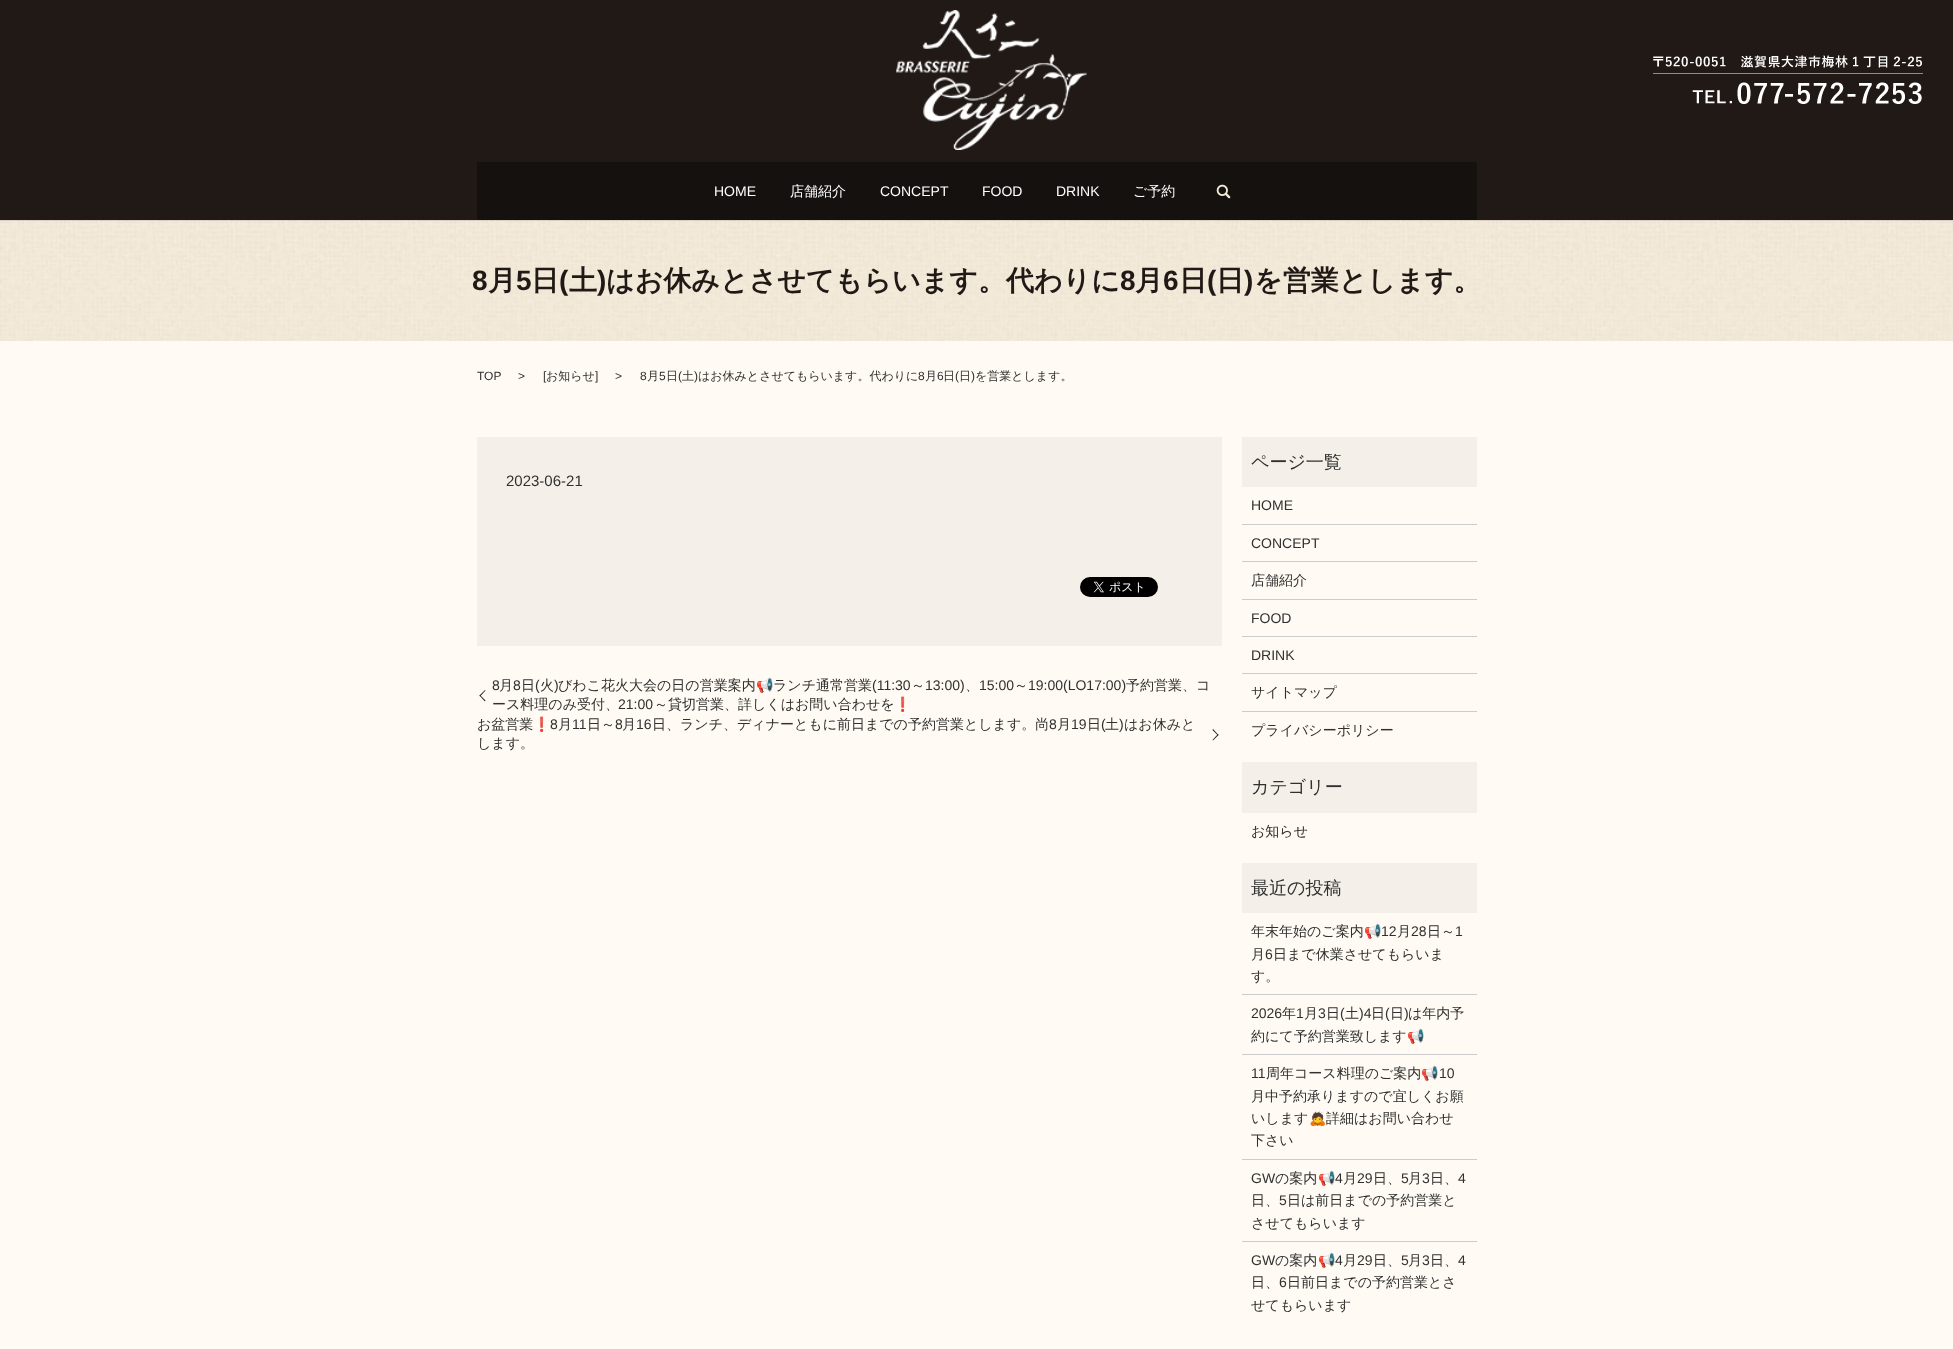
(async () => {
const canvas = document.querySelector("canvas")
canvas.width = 1953
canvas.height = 1349
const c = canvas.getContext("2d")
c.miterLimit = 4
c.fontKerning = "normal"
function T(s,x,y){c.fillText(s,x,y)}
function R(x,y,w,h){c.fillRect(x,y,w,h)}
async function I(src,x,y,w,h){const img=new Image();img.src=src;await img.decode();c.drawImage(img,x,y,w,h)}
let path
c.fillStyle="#fffbf4"
R(0,0,1953,1349)
await I("4.png",0,220,1953,121)
c.fillStyle="#0000001a"
c.filter="blur(0.5px)"
c.beginPath()
c.rect(0,1,1953,220)
c.fill()
c.filter="none"
c.fillStyle="#201916"
R(0,0,1953,220)
await I("1.png",896,10,191,140)
await I("2.png",1653,55,270,49)
c.fillStyle="#15110f"
R(477,162,1000,58)
c.font="14px Liberation Sans"
c.fillStyle="#fff"
T("HOME",714,196)
c.font="500 14px WenQuanYi Zen Hei"
T("店舗紹介",790,196)
c.font="14px Liberation Sans"
T("CONCEPT",880,196)
T("FOOD",982,196)
T("DRINK",1056,196)
c.font="500 14px WenQuanYi Zen Hei"
T("ご予約",1133,196)
await I("3.png",1216,184,15,15)
c.font="bold 28px Liberation Sans"
c.fillStyle="#201916"
T("8",472,290)
c.font="bold 28px WenQuanYi Zen Hei"
T("月",488,290)
c.font="bold 28px Liberation Sans"
T("5",516,290)
c.font="bold 28px WenQuanYi Zen Hei"
T("日",531,290)
c.font="bold 28px Liberation Sans"
T("(",559,290)
c.font="bold 28px WenQuanYi Zen Hei"
T("土",569,290)
c.font="bold 28px Liberation Sans"
T(")",597,290)
c.font="bold 28px WenQuanYi Zen Hei"
T("はお休みとさせてもらいます。代わりに",606,290)
c.font="bold 28px Liberation Sans"
T("8",1120,290)
c.font="bold 28px WenQuanYi Zen Hei"
T("月",1135,290)
c.font="bold 28px Liberation Sans"
T("6",1163,290)
c.font="bold 28px WenQuanYi Zen Hei"
T("日",1179,290)
c.font="bold 28px Liberation Sans"
T("(",1207,290)
c.font="bold 28px WenQuanYi Zen Hei"
T("日",1216,290)
c.font="bold 28px Liberation Sans"
T(")",1244,290)
c.font="bold 28px WenQuanYi Zen Hei"
T("を営業とします。",1254,290)
c.font="12px Liberation Sans"
c.fillStyle="#303030"
T("TOP",477,380)
T(">",518,380)
T("[",543,380)
c.font="500 12px WenQuanYi Zen Hei"
T("お知らせ",546,380)
c.font="12px Liberation Sans"
T("]",595,380)
T(">",615,380)
T("8",640,380)
c.font="500 12px WenQuanYi Zen Hei"
T("月",647,380)
c.font="12px Liberation Sans"
T("5",659,380)
c.font="500 12px WenQuanYi Zen Hei"
T("日",666,380)
c.font="12px Liberation Sans"
T("(",678,380)
c.font="500 12px WenQuanYi Zen Hei"
T("土",682,380)
c.font="12px Liberation Sans"
T(")",694,380)
c.font="500 12px WenQuanYi Zen Hei"
T("はお休みとさせてもらいます。代わりに",698,380)
c.font="12px Liberation Sans"
T("8",918,380)
c.font="500 12px WenQuanYi Zen Hei"
T("月",925,380)
c.font="12px Liberation Sans"
T("6",937,380)
c.font="500 12px WenQuanYi Zen Hei"
T("日",943,380)
c.font="12px Liberation Sans"
T("(",955,380)
c.font="500 12px WenQuanYi Zen Hei"
T("日",959,380)
c.font="12px Liberation Sans"
T(")",971,380)
c.font="500 12px WenQuanYi Zen Hei"
T("を営業とします。",975,380)
c.fillStyle="#f4f0e9"
R(477,437,745,209)
c.font="15px Liberation Sans"
c.fillStyle="#303030"
T("2023-06-21",506,486)
await I("5.png",1080,577,78,20)
c.font="14px Liberation Sans"
T("8",492,690)
c.font="500 14px WenQuanYi Zen Hei"
T("月",499,690)
c.font="14px Liberation Sans"
T("8",513,690)
c.font="500 14px WenQuanYi Zen Hei"
T("日",521,690)
c.font="14px Liberation Sans"
T("(",535,690)
c.font="500 14px WenQuanYi Zen Hei"
T("火",540,690)
c.font="14px Liberation Sans"
T(")",554,690)
c.font="500 14px WenQuanYi Zen Hei"
T("びわこ花火大会の日の営業案内",558,690)
c.font="14px Noto Color Emoji"
T("📢",756,690)
c.font="500 14px WenQuanYi Zen Hei"
T("ランチ通常営業",773,690)
c.font="14px Liberation Sans"
T("(11:30",872,690)
c.font="500 14px WenQuanYi Zen Hei"
T("～",911,690)
c.font="14px Liberation Sans"
T("13:00)",925,690)
T("15:00",979,690)
c.font="500 14px WenQuanYi Zen Hei"
T("～",1014,690)
c.font="14px Liberation Sans"
T("19:00(LO17:00)",1028,690)
c.font="500 14px WenQuanYi Zen Hei"
T("予約営業、コ",1126,690)
c.fillStyle="#201916"
path = new Path2D("M479.5 695.5l5.5-5.5l.5 .5l-5.5 6z")
c.fill(path)
c.fillStyle="#303030"
T("、",965,690)
c.fillStyle="#201916"
path = new Path2D("M485 701.5l-5.5-6l.5-.5l5.5 5.5z")
c.fill(path)
c.fillStyle="#303030"
T("ース料理のみ受付、",492,709)
c.font="14px Liberation Sans"
T("21:00",618,709)
c.font="500 14px WenQuanYi Zen Hei"
T("～貸切営業、詳しくはお問い合わせを",654,709)
c.font="14px Noto Color Emoji"
T("❗",894,709)
c.font="500 14px WenQuanYi Zen Hei"
T("お盆営業",477,729)
c.font="14px Noto Color Emoji"
T("❗",533,729)
c.font="14px Liberation Sans"
T("8",550,729)
c.font="500 14px WenQuanYi Zen Hei"
T("月",558,729)
c.font="14px Liberation Sans"
T("11",572,729)
c.font="500 14px WenQuanYi Zen Hei"
T("日～",587,729)
c.font="14px Liberation Sans"
T("8",615,729)
c.font="500 14px WenQuanYi Zen Hei"
T("月",622,729)
c.font="14px Liberation Sans"
T("16",636,729)
c.font="500 14px WenQuanYi Zen Hei"
T("日、ランチ、ディナーともに前日までの予約営業とします。尚",652,729)
c.font="14px Liberation Sans"
T("8",1049,729)
c.font="500 14px WenQuanYi Zen Hei"
T("月",1057,729)
c.font="14px Liberation Sans"
T("19",1071,729)
c.font="500 14px WenQuanYi Zen Hei"
T("日",1087,729)
c.font="14px Liberation Sans"
T("(",1101,729)
c.font="500 14px WenQuanYi Zen Hei"
T("土",1105,729)
c.font="14px Liberation Sans"
T(")",1119,729)
c.font="500 14px WenQuanYi Zen Hei"
T("はお休みと",1124,729)
c.fillStyle="#201916"
path = new Path2D("M1213 729l5.5 6l-.5 .5l-5.5-5.5z")
c.fill(path)
c.fillStyle="#303030"
T("します。",477,748)
c.fillStyle="#201916"
path = new Path2D("M1218.5 735l-5.5 5.5l-.5-.5l5.5-6z")
c.fill(path)
c.fillStyle="#f4f0e9"
R(1242,437,235,50)
c.font="500 18px WenQuanYi Zen Hei"
c.fillStyle="#303030"
T("ページ一覧",1251,468)
c.fillStyle="#ccc"
R(1242,524,235,1)
c.font="14px Liberation Sans"
c.fillStyle="#303030"
T("HOME",1251,510)
c.fillStyle="#ccc"
R(1242,561,235,1)
c.fillStyle="#303030"
T("CONCEPT",1251,548)
c.fillStyle="#ccc"
R(1242,599,235,1)
c.font="500 14px WenQuanYi Zen Hei"
c.fillStyle="#303030"
T("店舗紹介",1251,585)
c.fillStyle="#ccc"
R(1242,636,235,1)
c.font="14px Liberation Sans"
c.fillStyle="#303030"
T("FOOD",1251,623)
c.fillStyle="#ccc"
R(1242,673,235,1)
c.fillStyle="#303030"
T("DRINK",1251,660)
c.fillStyle="#ccc"
R(1242,711,235,1)
c.font="500 14px WenQuanYi Zen Hei"
c.fillStyle="#303030"
T("サイトマップ",1251,697)
T("プライバシーポリシー",1251,735)
c.fillStyle="#f4f0e9"
R(1242,762,235,51)
c.font="500 18px WenQuanYi Zen Hei"
c.fillStyle="#303030"
T("カテゴリー",1251,793)
c.font="500 14px WenQuanYi Zen Hei"
T("お知らせ",1251,836)
c.fillStyle="#f4f0e9"
R(1242,863,235,50)
c.font="500 18px WenQuanYi Zen Hei"
c.fillStyle="#303030"
T("最近の投稿",1251,894)
c.fillStyle="#ccc"
R(1242,994,235,1)
c.font="500 14px WenQuanYi Zen Hei"
c.fillStyle="#303030"
T("年末年始のご案内",1251,936)
c.font="14px Noto Color Emoji"
T("📢",1364,936)
c.font="14px Liberation Sans"
T("12",1381,936)
c.font="500 14px WenQuanYi Zen Hei"
T("月",1397,936)
c.font="14px Liberation Sans"
T("28",1411,936)
c.font="500 14px WenQuanYi Zen Hei"
T("日～",1427,936)
c.font="14px Liberation Sans"
T("1",1455,936)
c.font="500 14px WenQuanYi Zen Hei"
T("月",1251,959)
c.font="14px Liberation Sans"
T("6",1265,959)
c.font="500 14px WenQuanYi Zen Hei"
T("日まで休業させてもらいま",1273,959)
T("す。",1251,981)
c.fillStyle="#ccc"
R(1242,1054,235,1)
c.font="14px Liberation Sans"
c.fillStyle="#303030"
T("2026",1251,1018)
c.font="500 14px WenQuanYi Zen Hei"
T("年",1282,1018)
c.font="14px Liberation Sans"
T("1",1296,1018)
c.font="500 14px WenQuanYi Zen Hei"
T("月",1304,1018)
c.font="14px Liberation Sans"
T("3",1318,1018)
c.font="500 14px WenQuanYi Zen Hei"
T("日",1326,1018)
c.font="14px Liberation Sans"
T("(",1340,1018)
c.font="500 14px WenQuanYi Zen Hei"
T("土",1345,1018)
c.font="14px Liberation Sans"
T(")4",1359,1018)
c.font="500 14px WenQuanYi Zen Hei"
T("日",1371,1018)
c.font="14px Liberation Sans"
T("(",1385,1018)
c.font="500 14px WenQuanYi Zen Hei"
T("日",1390,1018)
c.font="14px Liberation Sans"
T(")",1404,1018)
c.font="500 14px WenQuanYi Zen Hei"
T("は年内予",1408,1018)
T("約にて予約営業致します",1251,1041)
c.font="14px Noto Color Emoji"
T("📢",1407,1041)
c.fillStyle="#ccc"
R(1242,1159,235,1)
c.font="14px Liberation Sans"
c.fillStyle="#303030"
T("11",1251,1078)
c.font="500 14px WenQuanYi Zen Hei"
T("周年コース料理のご案内",1266,1078)
c.font="14px Noto Color Emoji"
T("📢",1421,1078)
c.font="14px Liberation Sans"
T("10",1439,1078)
c.font="500 14px WenQuanYi Zen Hei"
T("月中予約承りますので宜しくお願",1251,1101)
T("いします",1251,1123)
c.font="14px Noto Color Emoji"
T("🙇",1309,1123)
c.font="500 14px WenQuanYi Zen Hei"
T("詳細はお問い合わせ",1326,1123)
T("下さい",1251,1145)
c.fillStyle="#ccc"
R(1242,1241,235,1)
c.font="14px Liberation Sans"
c.fillStyle="#303030"
T("GW",1251,1183)
c.font="500 14px WenQuanYi Zen Hei"
T("の案内",1275,1183)
c.font="14px Noto Color Emoji"
T("📢",1318,1183)
c.font="14px Liberation Sans"
T("4",1335,1183)
c.font="500 14px WenQuanYi Zen Hei"
T("月",1343,1183)
c.font="14px Liberation Sans"
T("29",1357,1183)
c.font="500 14px WenQuanYi Zen Hei"
T("日、",1373,1183)
c.font="14px Liberation Sans"
T("5",1401,1183)
c.font="500 14px WenQuanYi Zen Hei"
T("月",1408,1183)
c.font="14px Liberation Sans"
T("3",1422,1183)
c.font="500 14px WenQuanYi Zen Hei"
T("日、",1430,1183)
c.font="14px Liberation Sans"
T("4",1458,1183)
c.font="500 14px WenQuanYi Zen Hei"
T("日、",1251,1205)
c.font="14px Liberation Sans"
T("5",1279,1205)
c.font="500 14px WenQuanYi Zen Hei"
T("日は前日までの予約営業と",1287,1205)
T("させてもらいます",1251,1228)
c.font="14px Liberation Sans"
T("GW",1251,1265)
c.font="500 14px WenQuanYi Zen Hei"
T("の案内",1275,1265)
c.font="14px Noto Color Emoji"
T("📢",1318,1265)
c.font="14px Liberation Sans"
T("4",1335,1265)
c.font="500 14px WenQuanYi Zen Hei"
T("月",1343,1265)
c.font="14px Liberation Sans"
T("29",1357,1265)
c.font="500 14px WenQuanYi Zen Hei"
T("日、",1373,1265)
c.font="14px Liberation Sans"
T("5",1401,1265)
c.font="500 14px WenQuanYi Zen Hei"
T("月",1408,1265)
c.font="14px Liberation Sans"
T("3",1422,1265)
c.font="500 14px WenQuanYi Zen Hei"
T("日、",1430,1265)
c.font="14px Liberation Sans"
T("4",1458,1265)
c.font="500 14px WenQuanYi Zen Hei"
T("日、",1251,1287)
c.font="14px Liberation Sans"
T("6",1279,1287)
c.font="500 14px WenQuanYi Zen Hei"
T("日前日までの予約営業とさ",1287,1287)
T("せてもらいます",1251,1310)
})()
